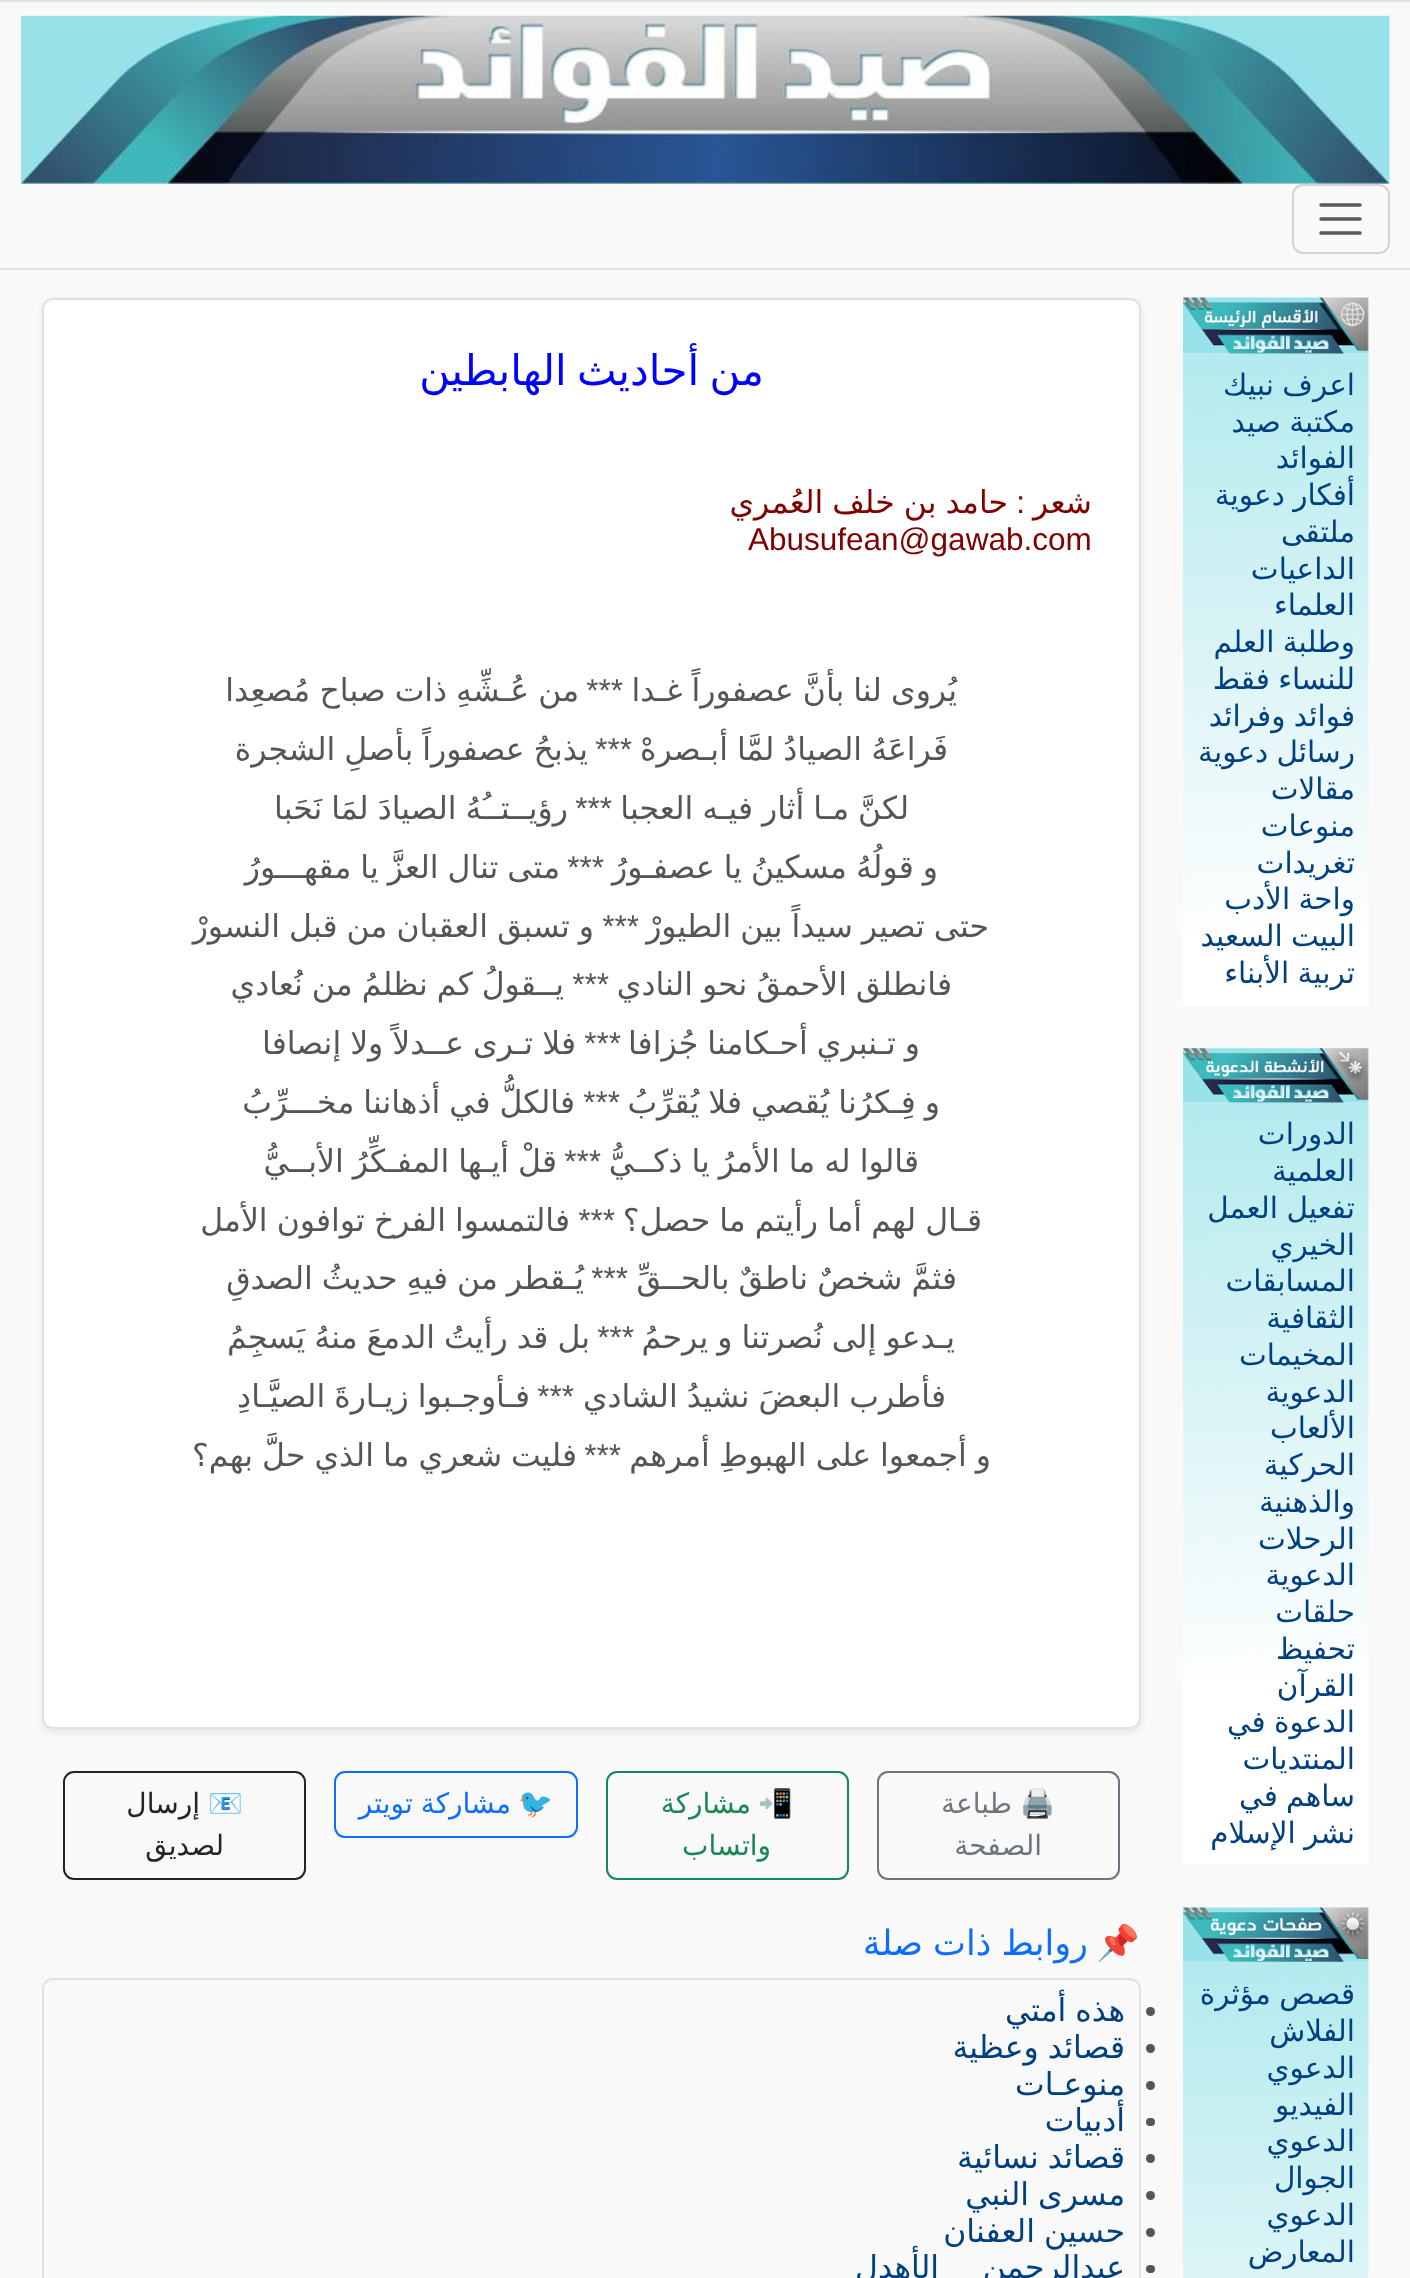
(async () => {
const canvas = document.querySelector("canvas")
canvas.width = 1410
canvas.height = 2278
const c = canvas.getContext("2d")
c.miterLimit = 4
c.fontKerning = "normal"
function T(s,x,y){c.fillText(s,x,y)}
function R(x,y,w,h){c.fillRect(x,y,w,h)}
function Q(x,y,w,h,r){c.beginPath();c.roundRect(x,y,w,h,r);c.fill()}
async function I(src,x,y,w,h){const img=new Image();img.src=src;await img.decode();c.drawImage(img,x,y,w,h)}
let path
c.fillStyle="#f9f9f9"
R(0,0,1410,2278)
c.fillStyle="#dee2e6"
R(0,0,1410,2)
R(0,268,1410,2)
await I("1.png",21,15,1369,169)
c.beginPath()
c.roundRect(1293,185,96,68,10)
c.strokeStyle="#d4d4d4"
c.lineWidth=2
c.stroke()
path = new Path2D("M1321 205h39m-39 14h39m-39 14h39")
c.strokeStyle="#575a5d"
c.lineWidth=3.5
c.lineCap="round"
c.stroke(path)
await I("3.png",1183,353,186,653)
await I("2.png",1183,297,186,57)
c.wordSpacing="-1px"
c.direction="rtl"
c.font="29.5px DejaVu Sans"
c.fillStyle="#004080"
T("اعرف نبيك",1355,395)
T("مكتبة صيد",1355,432)
c.wordSpacing="0px"
T("الفوائد",1355,468)
c.wordSpacing="-1px"
T("أفكار دعوية",1355,505)
c.wordSpacing="0px"
T("ملتقى",1355,542)
T("الداعيات",1355,579)
T("العلماء",1355,615)
c.wordSpacing="-1px"
T("وطلبة العلم",1355,652)
T("للنساء فقط",1355,689)
T("فوائد وفرائد",1355,726)
T("رسائل دعوية",1355,762)
c.wordSpacing="0px"
T("مقالات",1355,799)
T("منوعات",1355,836)
T("تغريدات",1355,873)
c.wordSpacing="-1px"
T("واحة الأدب",1355,909)
T("البيت السعيد",1355,946)
T("تربية الأبناء",1355,983)
await I("5.png",1183,1102,186,763)
await I("4.png",1183,1048,186,55)
c.wordSpacing="0px"
T("الدورات",1355,1144)
T("العلمية",1355,1181)
c.wordSpacing="-1px"
T("تفعيل العمل",1355,1218)
c.wordSpacing="0px"
T("الخيري",1355,1255)
T("المسابقات",1355,1291)
T("الثقافية",1355,1328)
T("المخيمات",1355,1365)
T("الدعوية",1355,1402)
T("الألعاب",1355,1438)
T("الحركية",1355,1475)
T("والذهنية",1355,1512)
T("الرحلات",1355,1549)
T("الدعوية",1355,1585)
T("حلقات",1355,1622)
T("تحفيظ",1355,1659)
T("القرآن",1355,1696)
c.wordSpacing="-1px"
T("الدعوة في",1355,1732)
c.wordSpacing="0px"
T("المنتديات",1355,1769)
c.wordSpacing="-1px"
T("ساهم في",1355,1806)
T("نشر الإسلام",1355,1843)
await I("7.png",1183,1961,186,317)
await I("6.png",1183,1907,186,55)
T("قصص مؤثرة",1355,2004)
c.wordSpacing="0px"
T("الفلاش",1355,2041)
T("الدعوي",1355,2078)
T("الفيديو",1355,2115)
T("الدعوي",1355,2151)
T("الجوال",1355,2188)
T("الدعوي",1355,2225)
T("المعارض",1355,2262)
c.fillStyle="#00000012"
c.filter="blur(3.5px)"
c.beginPath()
c.roundRect(42,301,1099,1432,11)
c.fill()
c.filter="none"
c.fillStyle="#fff"
c.beginPath()
c.roundRect(43,299,1097,1429,10)
c.fill()
c.strokeStyle="#dee2e6"
c.lineWidth=2
c.stroke()
c.wordSpacing="-3px"
c.font="42px DejaVu Sans"
c.fillStyle="#00f"
T("من أحاديث الهابطين",764,385)
c.wordSpacing="0px"
c.font="31.5px DejaVu Sans"
c.fillStyle="#800000"
T("شعر",1092,513)
c.font="31.5px Liberation Sans"
T(":",1025,513)
c.wordSpacing="-1px"
c.font="31.5px DejaVu Sans"
T("حامد بن خلف العُمري",1008,513)
c.wordSpacing="0px"
c.direction="ltr"
c.font="31.5px Liberation Sans"
T("Abusufean@gawab.com",748,550)
c.wordSpacing="-1px"
c.direction="rtl"
c.font="31.5px DejaVu Sans"
c.fillStyle="#555"
T("يُروى لنا بأنَّ عصفوراً غـدا",957,701)
c.wordSpacing="0px"
c.font="31.5px Liberation Sans"
T("***",623,701)
c.wordSpacing="-1px"
c.font="31.5px DejaVu Sans"
T("من عُـشِّهِ ذات صباح",579,701)
c.wordSpacing="0px"
T("مُصعِدا",310,701)
c.wordSpacing="-1px"
T("فَراعَهُ الصيادُ لمَّا أبـصرهْ",948,760)
c.wordSpacing="0px"
c.font="31.5px Liberation Sans"
T("***",632,760)
c.wordSpacing="-1px"
c.font="31.5px DejaVu Sans"
T("يذبحُ عصفوراً بأصلِ الشجرة",588,760)
T("لكنَّ مـا أثار فيـه العجبا",909,819)
c.wordSpacing="0px"
c.font="31.5px Liberation Sans"
T("***",612,819)
c.wordSpacing="-1px"
c.font="31.5px DejaVu Sans"
T("رؤيــتــُهُ الصيادَ لمَا نَحَبا",568,819)
T("و قولُهُ مسكينُ يا عصفـورُ",938,878)
c.wordSpacing="0px"
c.font="31.5px Liberation Sans"
T("***",604,878)
c.wordSpacing="-1px"
c.font="31.5px DejaVu Sans"
T("متى تنال العزَّ يا مقهـــورُ",560,878)
T("حتى تصير سيداً بين الطيورْ",989,937)
c.wordSpacing="0px"
c.font="31.5px Liberation Sans"
T("***",639,937)
c.wordSpacing="-1px"
c.font="31.5px DejaVu Sans"
T("و تسبق العقبان من قبل النسورْ",594,937)
T("فانطلق الأحمقُ نحو النادي",952,995)
c.wordSpacing="0px"
c.font="31.5px Liberation Sans"
T("***",609,995)
c.wordSpacing="-1px"
c.font="31.5px DejaVu Sans"
T("يــقولُ كم نظلمُ من نُعادي",564,995)
T("و تـنبري أحـكامنا جُزافا",920,1054)
c.wordSpacing="0px"
c.font="31.5px Liberation Sans"
T("***",621,1054)
c.wordSpacing="-1px"
c.font="31.5px DejaVu Sans"
T("فلا تـرى عــدلاً ولا إنصافا",576,1054)
T("و فِـكرُنا يُقصي فلا يُقرِّبُ",940,1113)
c.wordSpacing="0px"
c.font="31.5px Liberation Sans"
T("***",620,1113)
c.wordSpacing="-1px"
c.font="31.5px DejaVu Sans"
T("فالكلُّ في أذهاننا مخـــرِّبُ",575,1113)
T("قالوا له ما الأمرُ يا ذكــيُّ",919,1172)
c.wordSpacing="0px"
c.font="31.5px Liberation Sans"
T("***",601,1172)
c.wordSpacing="-1px"
c.font="31.5px DejaVu Sans"
T("قلْ أيـها المفـكِّرُ الأبــيُّ",557,1172)
T("قـال لهم أما رأيتم ما حصل؟",982,1231)
c.wordSpacing="0px"
c.font="31.5px Liberation Sans"
T("***",615,1231)
c.wordSpacing="-1px"
c.font="31.5px DejaVu Sans"
T("فالتمسوا الفرخ توافون الأمل",570,1231)
T("فثمَّ شخصٌ ناطقٌ بالحــقِّ",957,1289)
c.wordSpacing="0px"
c.font="31.5px Liberation Sans"
T("***",628,1289)
c.wordSpacing="-1px"
c.font="31.5px DejaVu Sans"
T("يُـقطر من فيهِ حديثُ الصدقِ",584,1289)
T("يـدعو إلى نُصرتنا و يرحمُ",955,1348)
c.wordSpacing="0px"
c.font="31.5px Liberation Sans"
T("***",634,1348)
c.wordSpacing="-1px"
c.font="31.5px DejaVu Sans"
T("بل قد رأيتُ الدمعَ منهُ يَسجِمُ",590,1348)
T("فأطرب البعضَ نشيدُ الشادي",946,1407)
c.wordSpacing="0px"
c.font="31.5px Liberation Sans"
T("***",574,1407)
c.wordSpacing="-1px"
c.font="31.5px DejaVu Sans"
T("فـأوجـبوا زيـارةَ الصيَّـادِ",530,1407)
T("و أجمعوا على الهبوطِ أمرهم",991,1466)
c.wordSpacing="0px"
c.font="31.5px Liberation Sans"
T("***",621,1466)
c.wordSpacing="-1px"
c.font="31.5px DejaVu Sans"
T("فليت شعري ما الذي حلَّ بهم؟",577,1466)
c.beginPath()
c.roundRect(878,1772,241,107,10)
c.strokeStyle="#6c757d"
c.stroke()
c.wordSpacing="0px"
c.font="28px Noto Color Emoji"
c.fillStyle="#6c757d"
T("🖨️",1055,1813)
c.font="28px DejaVu Sans"
T("طباعة",1012,1813)
T("الصفحة",1042,1855)
c.beginPath()
c.roundRect(607,1772,241,107,10)
c.strokeStyle="#198754"
c.stroke()
c.font="28px Noto Color Emoji"
c.fillStyle="#198754"
T("📲",793,1813)
c.font="28px DejaVu Sans"
T("مشاركة",751,1813)
T("واتساب",771,1855)
c.beginPath()
c.roundRect(335,1772,242,65,10)
c.strokeStyle="#0d6efd"
c.stroke()
c.font="28px Noto Color Emoji"
c.fillStyle="#0d6efd"
T("🐦",553,1813)
c.wordSpacing="-1px"
c.font="28px DejaVu Sans"
T("مشاركة تويتر",511,1813)
c.beginPath()
c.roundRect(64,1772,241,107,10)
c.strokeStyle="#212529"
c.stroke()
c.wordSpacing="0px"
c.font="28px Noto Color Emoji"
c.fillStyle="#212529"
T("📧",243,1813)
c.font="28px DejaVu Sans"
T("إرسال",200,1813)
T("لصديق",224,1855)
c.font="35px Noto Color Emoji"
c.fillStyle="#0d6efd"
T("📌",1140,1955)
c.wordSpacing="-1px"
c.font="35px DejaVu Sans"
T("روابط ذات صلة",1088,1955)
c.beginPath()
c.roundRect(43,1979,1097,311,10)
c.strokeStyle="#dee2e6"
c.stroke()
c.fillStyle="#555"
c.beginPath()
c.arc(1150.5,2011.5,4.5,0,7)
c.fill()
c.font="31.5px DejaVu Sans"
c.fillStyle="#004080"
T("هذه أمتي",1125,2021)
c.fillStyle="#555"
c.beginPath()
c.arc(1150.5,2048.5,4.5,0,7)
c.fill()
c.fillStyle="#004080"
T("قصائد وعظية",1125,2058)
c.fillStyle="#555"
c.beginPath()
c.arc(1150.5,2085.5,4.5,0,7)
c.fill()
c.wordSpacing="0px"
c.fillStyle="#004080"
T("منوعـات",1125,2095)
c.fillStyle="#555"
Q(1146,2118,9,8,4)
c.fillStyle="#004080"
T("أدبيات",1125,2131)
c.fillStyle="#555"
c.beginPath()
c.arc(1150.5,2158.5,4.5,0,7)
c.fill()
c.wordSpacing="-1px"
c.fillStyle="#004080"
T("قصائد نسائية",1125,2168)
c.fillStyle="#555"
c.beginPath()
c.arc(1150.5,2195.5,4.5,0,7)
c.fill()
c.fillStyle="#004080"
T("مسرى النبي",1125,2205)
c.fillStyle="#555"
c.beginPath()
c.arc(1150.5,2232.5,4.5,0,7)
c.fill()
c.fillStyle="#004080"
T("حسين العفنان",1125,2242)
c.fillStyle="#555"
Q(1146,2265,9,8,4)
c.letterSpacing="-2.3px"
c.wordSpacing="36px"
c.fillStyle="#004080"
T("عبدالرحمن الأهدل",1125,2278)
})()
